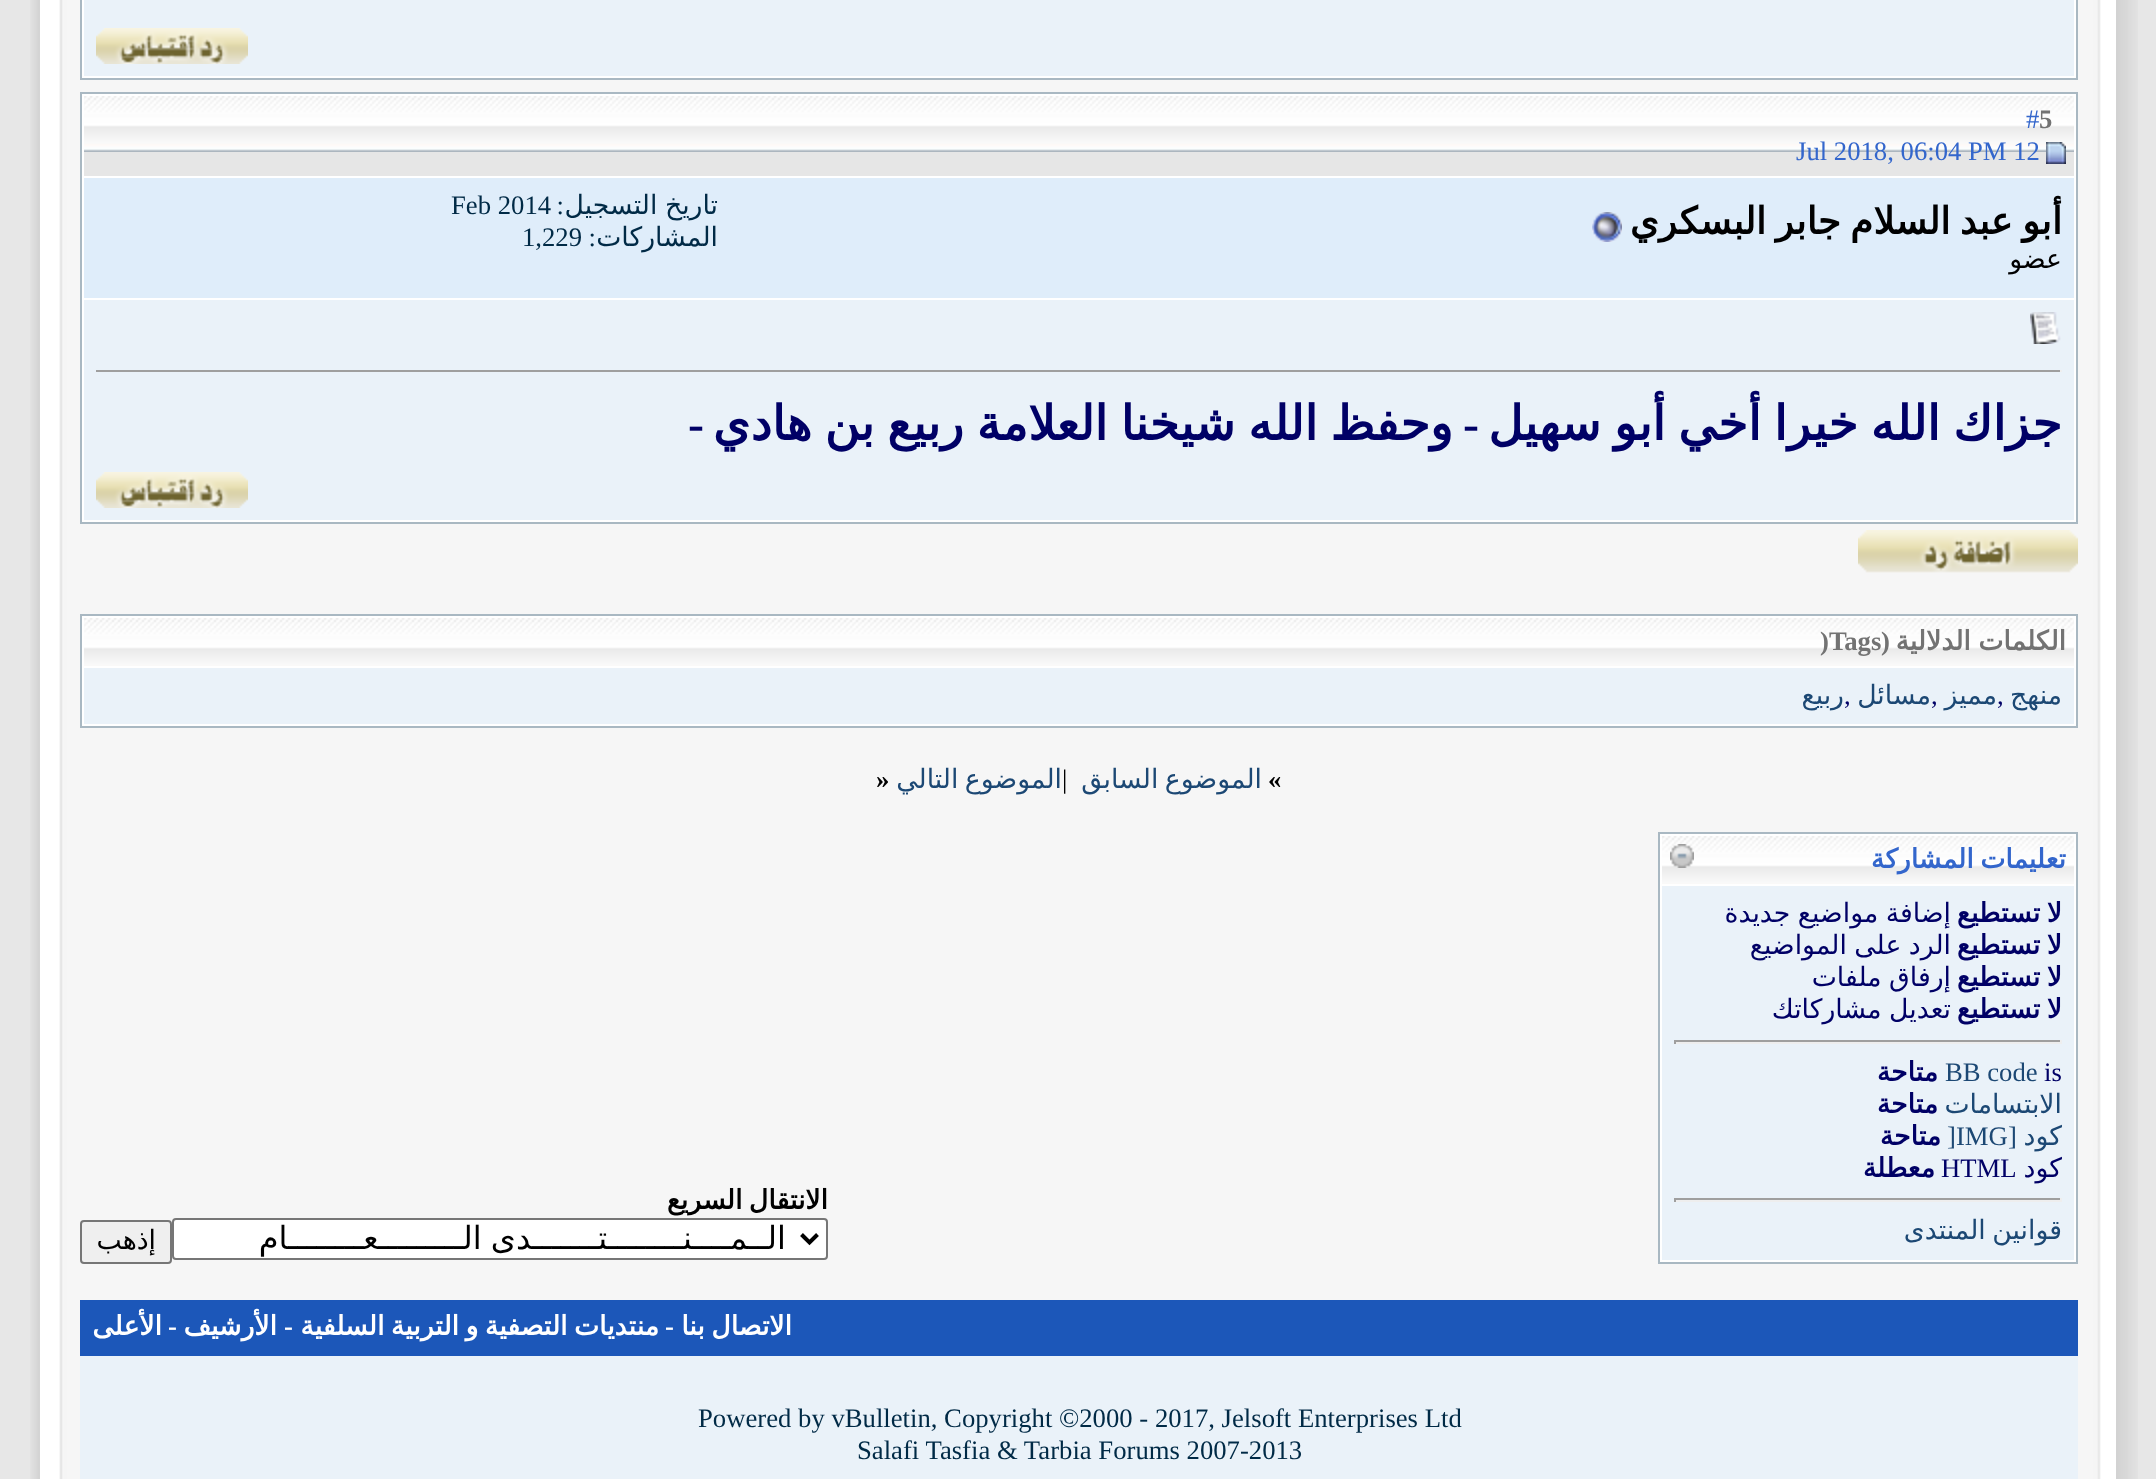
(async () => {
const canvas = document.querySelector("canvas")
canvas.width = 2156
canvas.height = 1479
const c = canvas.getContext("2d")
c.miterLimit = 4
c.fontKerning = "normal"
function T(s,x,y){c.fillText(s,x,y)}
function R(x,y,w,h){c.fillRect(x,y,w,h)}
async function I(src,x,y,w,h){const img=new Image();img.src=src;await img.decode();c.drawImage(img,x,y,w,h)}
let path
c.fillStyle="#e7e7e7"
R(0,0,2156,1479)
await I("1.png",2116,0,22,1479)
c.fillStyle="#fff"
R(40,0,2076,1479)
await I("2.png",2078,0,23,1479)
c.fillStyle="#f6f6f6"
R(80,80,1998,12)
c.strokeStyle="#a9b8c2"
c.lineWidth=2
c.strokeRect(81,-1,1996,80)
c.fillStyle="#eaf2f9"
R(84,0,1990,76)
await I("3.png",96,28,152,36)
c.fillStyle="#f6f6f6"
R(80,524,1998,776)
c.strokeRect(81,93,1996,430)
c.fillStyle="#e6e6e6"
R(84,152,1990,24)
await I("4.png",84,96,1990,56)
c.font="bold 26.7px Liberation Serif"
c.fillStyle="#737373"
T("5",2039,128)
c.font="26.7px Liberation Serif"
c.fillStyle="#36c"
T("#",2026,128)
await I("5.png",2046,142,20,22)
T("Jul 2018, 06:04 PM 12",1796,160)
c.fillStyle="#dfedfa"
R(84,178,1990,120)
c.wordSpacing="-2.5px"
c.direction="rtl"
c.font="bold 37.25px DejaVu Sans"
c.fillStyle="#000"
T("أبو عبد السلام جابر البسكري",2062,234)
await I("6.png",1592,212,30,30)
c.wordSpacing="0px"
c.font="26.7px DejaVu Sans"
T("عضو",2062,268)
c.wordSpacing="-1px"
c.fillStyle="#002a46"
T("تاريخ التسجيل",718,214)
c.wordSpacing="0px"
c.font="26.7px Liberation Serif"
T(":",564,214)
c.direction="ltr"
T("Feb 2014",451,214)
c.direction="rtl"
c.font="26.7px DejaVu Sans"
T("المشاركات",718,246)
c.font="26.7px Liberation Serif"
T(":",596,246)
c.direction="ltr"
T("1,229",522,246)
c.fillStyle="#eaf2f9"
R(84,300,1990,220)
await I("7.png",2030,312,31,32)
c.fillStyle="#9f9f9f"
R(96,370,1966,2)
c.fillStyle="#eee"
R(2060,370,2,2)
c.wordSpacing="-2.5px"
c.direction="rtl"
c.font="bold 48px DejaVu Sans"
c.fillStyle="#006"
T("جزاك الله خيرا أخي أبو سهيل",2062,440)
T("وحفظ الله شيخنا العلامة ربيع بن هادي",1453,440)
c.wordSpacing="0px"
c.font="bold 48px Liberation Serif"
T("-",1479,440)
T("-",704,440)
await I("3.png",96,472,152,36)
await I("8.png",1858,530,220,43)
c.fillStyle="#fff"
c.beginPath()
c.rect(81,615,1996,112)
c.fill()
c.stroke()
await I("9.png",84,618,1990,48)
c.wordSpacing="-1px"
c.font="bold 26.7px DejaVu Sans"
c.fillStyle="#737373"
T("الكلمات الدلالية",2066,650)
c.wordSpacing="0px"
c.font="bold 26.7px Liberation Serif"
T("(",1890,650)
c.direction="ltr"
T(")Tags",1820,650)
c.fillStyle="#eaf2f9"
R(84,668,1990,56)
c.direction="rtl"
c.font="26.7px DejaVu Sans"
c.fillStyle="#1c4874"
T("منهج",2062,704)
c.direction="ltr"
c.font="26.7px Liberation Serif"
c.fillStyle="#006"
T(",",1997,704)
c.direction="rtl"
c.font="26.7px DejaVu Sans"
c.fillStyle="#1c4874"
T("مميز",1997,704)
c.direction="ltr"
c.font="26.7px Liberation Serif"
c.fillStyle="#006"
T(",",1931,704)
c.direction="rtl"
c.font="26.7px DejaVu Sans"
c.fillStyle="#1c4874"
T("مسائل",1931,704)
c.direction="ltr"
c.font="26.7px Liberation Serif"
c.fillStyle="#006"
T(",",1844,704)
c.direction="rtl"
c.font="26.7px DejaVu Sans"
c.fillStyle="#1c4874"
T("ربيع",1844,704)
c.direction="ltr"
c.font="bold 26.7px Liberation Serif"
c.fillStyle="#000"
T("«",1268,788)
c.wordSpacing="-2px"
c.direction="rtl"
c.font="26.7px DejaVu Sans"
c.fillStyle="#1c4874"
T("الموضوع السابق",1262,788)
c.wordSpacing="0px"
c.direction="ltr"
c.font="26.7px Liberation Serif"
c.fillStyle="#000"
T("|",1062,788)
c.wordSpacing="-2px"
c.direction="rtl"
c.font="26.7px DejaVu Sans"
c.fillStyle="#1c4874"
T("الموضوع التالي",1062,788)
c.wordSpacing="0px"
c.direction="ltr"
c.font="bold 26.7px Liberation Serif"
c.fillStyle="#000"
T("»",876,788)
c.fillStyle="#fff"
c.beginPath()
c.rect(1659,833,418,430)
c.fill()
c.stroke()
await I("10.png",1662,836,412,48)
c.wordSpacing="-2px"
c.direction="rtl"
c.font="bold 26.7px DejaVu Sans"
c.fillStyle="#36c"
T("تعليمات المشاركة",2066,868)
await I("11.png",1670,844,24,24)
c.fillStyle="#eaf2f9"
R(1662,886,412,374)
c.fillStyle="#006"
T("لا تستطيع",2062,922)
c.wordSpacing="-1px"
c.font="26.7px DejaVu Sans"
T("إضافة مواضيع جديدة",1951,922)
c.wordSpacing="-2px"
c.font="bold 26.7px DejaVu Sans"
T("لا تستطيع",2062,954)
c.wordSpacing="-1px"
c.font="26.7px DejaVu Sans"
T("الرد على المواضيع",1951,954)
c.wordSpacing="-2px"
c.font="bold 26.7px DejaVu Sans"
T("لا تستطيع",2062,986)
c.wordSpacing="-1px"
c.font="26.7px DejaVu Sans"
T("إرفاق ملفات",1951,986)
c.wordSpacing="-2px"
c.font="bold 26.7px DejaVu Sans"
T("لا تستطيع",2062,1018)
c.wordSpacing="-1px"
c.font="26.7px DejaVu Sans"
T("تعديل مشاركاتك",1951,1018)
c.fillStyle="#9f9f9f"
R(1674,1040,388,2)
c.fillStyle="#eee"
R(2060,1040,2,4)
R(1674,1042,388,2)
c.fillStyle="#9f9f9f"
R(1674,1040,2,4)
c.wordSpacing="0px"
c.direction="ltr"
c.font="26.7px Liberation Serif"
c.fillStyle="#006"
T("is",2044,1081)
c.fillStyle="#1c4874"
T("BB code",1945,1081)
c.direction="rtl"
c.font="bold 26.7px DejaVu Sans"
c.fillStyle="#006"
T("متاحة",1938,1081)
c.font="26.7px DejaVu Sans"
c.fillStyle="#1c4874"
T("الابتسامات",2062,1113)
c.font="bold 26.7px DejaVu Sans"
c.fillStyle="#006"
T("متاحة",1938,1113)
c.font="26.7px DejaVu Sans"
c.fillStyle="#1c4874"
T("كود",2062,1145)
c.font="26.7px Liberation Serif"
T("[",2017,1145)
c.direction="ltr"
T("]IMG",1947,1145)
c.direction="rtl"
c.font="bold 26.7px DejaVu Sans"
c.fillStyle="#006"
T("متاحة",1941,1145)
c.font="26.7px DejaVu Sans"
T("كود",2062,1177)
c.direction="ltr"
c.font="26.7px Liberation Serif"
T("HTML",1941,1177)
c.direction="rtl"
c.font="bold 26.7px DejaVu Sans"
T("معطلة",1935,1177)
c.fillStyle="#9f9f9f"
R(1674,1198,388,2)
c.fillStyle="#eee"
R(2060,1198,2,4)
R(1674,1200,388,2)
c.fillStyle="#9f9f9f"
R(1674,1198,2,4)
c.wordSpacing="-2px"
c.font="26.7px DejaVu Sans"
c.fillStyle="#1c4874"
T("قوانين المنتدى",2062,1239)
c.font="bold 26.7px DejaVu Sans"
c.fillStyle="#000"
T("الانتقال السريع",828,1209)
c.fillStyle="#fff"
c.beginPath()
c.roundRect(173,1219,654,40,3)
c.fill()
c.strokeStyle="#767676"
c.stroke()
path = new Path2D("M801.5 1234.5l8 8l8-8")
c.strokeStyle="#000"
c.lineWidth=4
c.stroke(path)
c.wordSpacing="-1px"
c.font="32px DejaVu Sans"
c.fillStyle="#000"
T("الــمــــنــــــــتـــــــدى الـــــــــعــــــــام",786,1249)
c.fillStyle="#efefef"
c.beginPath()
c.roundRect(81,1221,90,42,3)
c.fill()
c.strokeStyle="#767676"
c.lineWidth=2
c.stroke()
c.wordSpacing="0px"
c.font="26.7px DejaVu Sans"
c.fillStyle="#000"
T("إذهب",156,1249)
c.fillStyle="#1c57b9"
R(80,1300,1998,56)
c.wordSpacing="-2px"
c.font="bold 26.7px DejaVu Sans"
c.fillStyle="#fff"
T("الاتصال بنا",792,1335)
c.wordSpacing="0px"
c.direction="ltr"
c.font="bold 26.7px Liberation Serif"
T("-",665,1335)
c.wordSpacing="-2px"
c.direction="rtl"
c.font="bold 26.7px DejaVu Sans"
T("منتديات التصفية و التربية السلفية",659,1335)
c.wordSpacing="0px"
c.direction="ltr"
c.font="bold 26.7px Liberation Serif"
T("-",284,1335)
c.direction="rtl"
c.font="bold 26.7px DejaVu Sans"
T("الأرشيف",277,1335)
c.direction="ltr"
c.font="bold 26.7px Liberation Serif"
T("-",168,1335)
c.direction="rtl"
c.font="bold 26.7px DejaVu Sans"
T("الأعلى",162,1335)
c.fillStyle="#eaf2f9"
R(80,1356,1998,123)
c.direction="ltr"
c.font="26.7px Liberation Serif"
c.fillStyle="#002a46"
T("Powered by vBulletin, Copyright ©2000 - 2017, Jelsoft Enterprises Ltd",698,1427)
T("Salafi Tasfia & Tarbia Forums 2007-2013",857,1459)
await I("12.png",59,0,21,1479)
await I("13.png",30,0,10,1479)
})()
